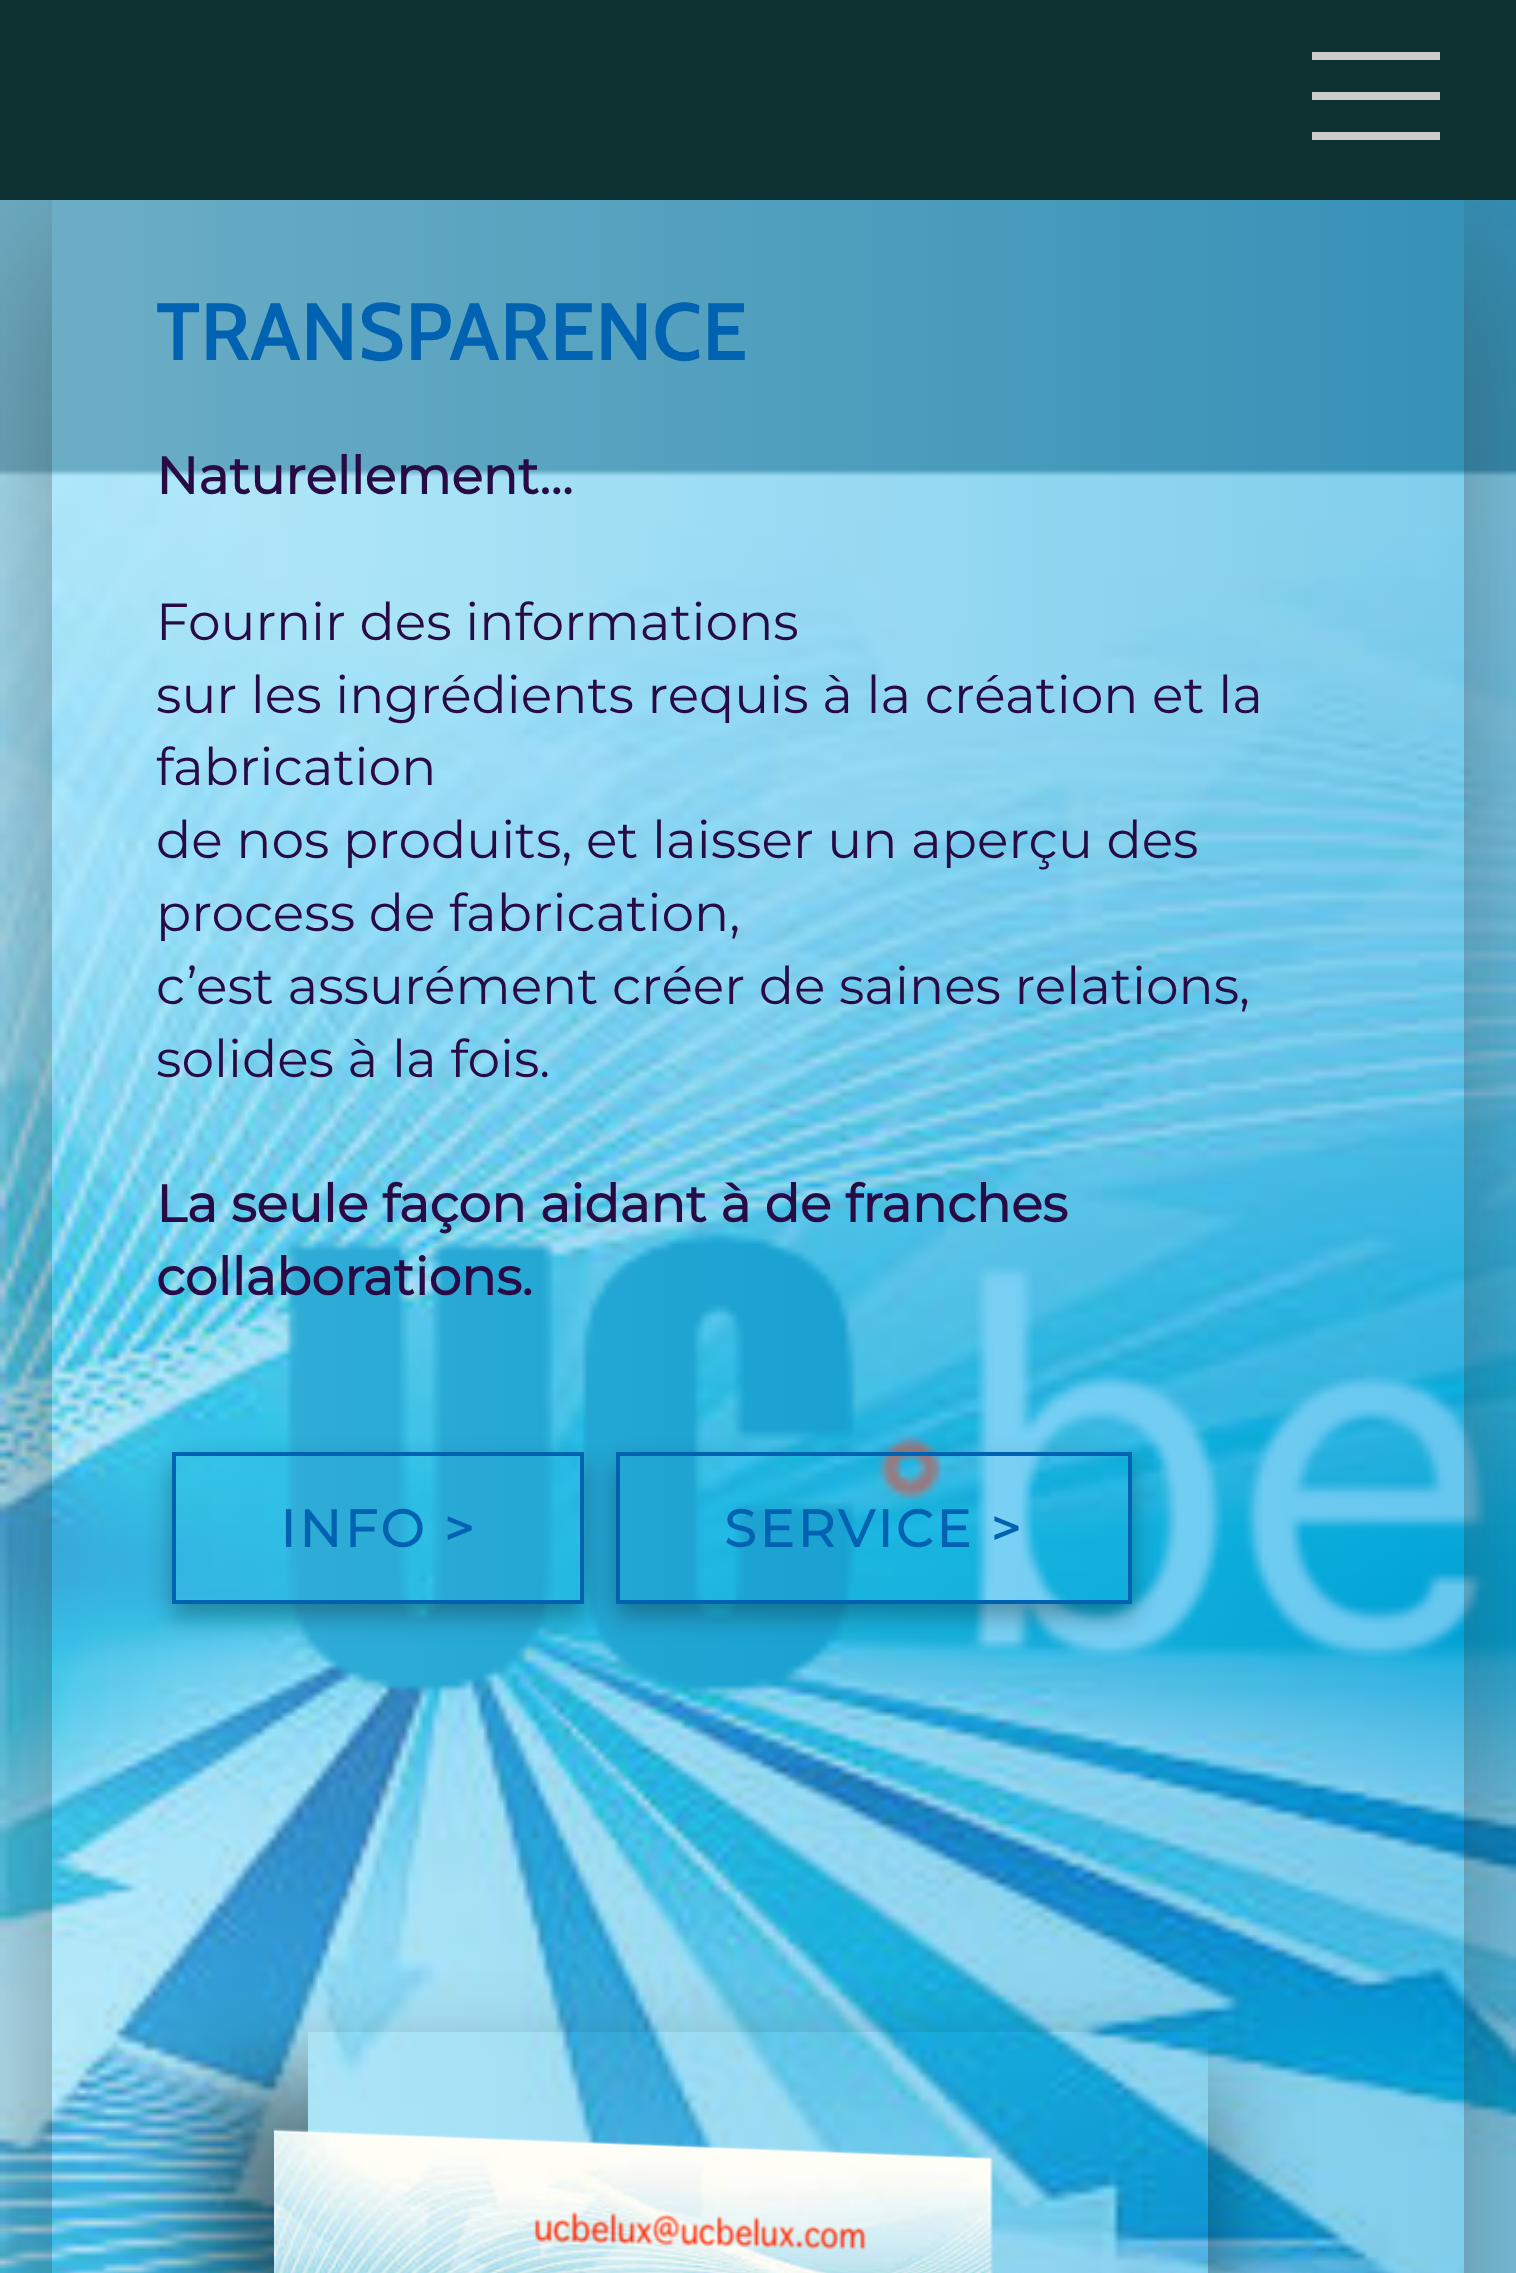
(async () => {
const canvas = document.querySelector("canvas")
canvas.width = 1516
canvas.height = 2273
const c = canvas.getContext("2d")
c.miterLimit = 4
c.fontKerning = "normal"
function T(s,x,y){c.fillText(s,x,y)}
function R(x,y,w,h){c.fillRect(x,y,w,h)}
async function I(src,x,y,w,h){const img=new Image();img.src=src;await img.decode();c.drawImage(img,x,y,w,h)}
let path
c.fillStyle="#68858c"
R(0,0,1516,2273)
await I("1.png",0,200,1516,2073)
c.save()
path = new Path2D("M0 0h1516v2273h-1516zm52 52h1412v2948h-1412z")
c.clip(path,"evenodd")
c.fillStyle="#32323280"
c.filter="blur(96px)"
c.beginPath()
c.rect(52,244,1412,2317)
c.fill()
c.filter="none"
c.restore()
c.fillStyle="#0e3232"
R(0,0,1516,200)
c.fillStyle="#ccc"
R(1312,52,128,8)
R(1312,92,128,8)
R(1312,132,128,8)
c.font="600 81px Cabin"
c.fillStyle="#0062b1"
T("TRANSPARENCE",156,360)
c.font="bold 52px Montserrat"
c.fillStyle="#280b44"
T("Naturellement…",156,494)
c.font="100 52px Montserrat"
T("Fournir des informations",156,640)
T("sur les ingrédients requis à la création et la",156,713)
T("fabrication",156,785)
T("de nos produits, et laisser un aperçu des",156,858)
T("process de fabrication,",156,931)
T("c’est assurément créer de saines relations,",156,1004)
T("solides à la fois.",156,1077)
c.font="bold 52px Montserrat"
T("La seule façon aidant à de franches",156,1222)
T("collaborations.",156,1295)
c.save()
path = new Path2D("M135 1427h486v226h-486zm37 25h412v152h-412z")
c.clip(path,"evenodd")
c.fillStyle="#0000004d"
c.filter="blur(12px)"
c.beginPath()
c.rect(172,1464,412,152)
c.fill()
c.filter="none"
c.restore()
c.strokeStyle="#0062b1"
c.lineWidth=4
c.strokeRect(174,1454,408,148)
c.letterSpacing="3.25px"
c.fillStyle="#0062b1"
T("INFO >",280,1547)
c.save()
path = new Path2D("M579 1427h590v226h-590zm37 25h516v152h-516z")
c.clip(path,"evenodd")
c.fillStyle="#0000004d"
c.filter="blur(12px)"
c.beginPath()
c.rect(616,1464,516,152)
c.fill()
c.filter="none"
c.restore()
c.strokeRect(618,1454,512,148)
T("SERVICE >",724,1547)
c.save()
path = new Path2D("M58 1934h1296v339h-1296zm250 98h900v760h-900z")
c.clip(path,"evenodd")
c.fillStyle="#00000080"
c.filter="blur(49.5px)"
c.beginPath()
c.rect(208,2084,996,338)
c.fill()
c.filter="none"
c.restore()
await I("2.png",274,2128,719,145)
})()
